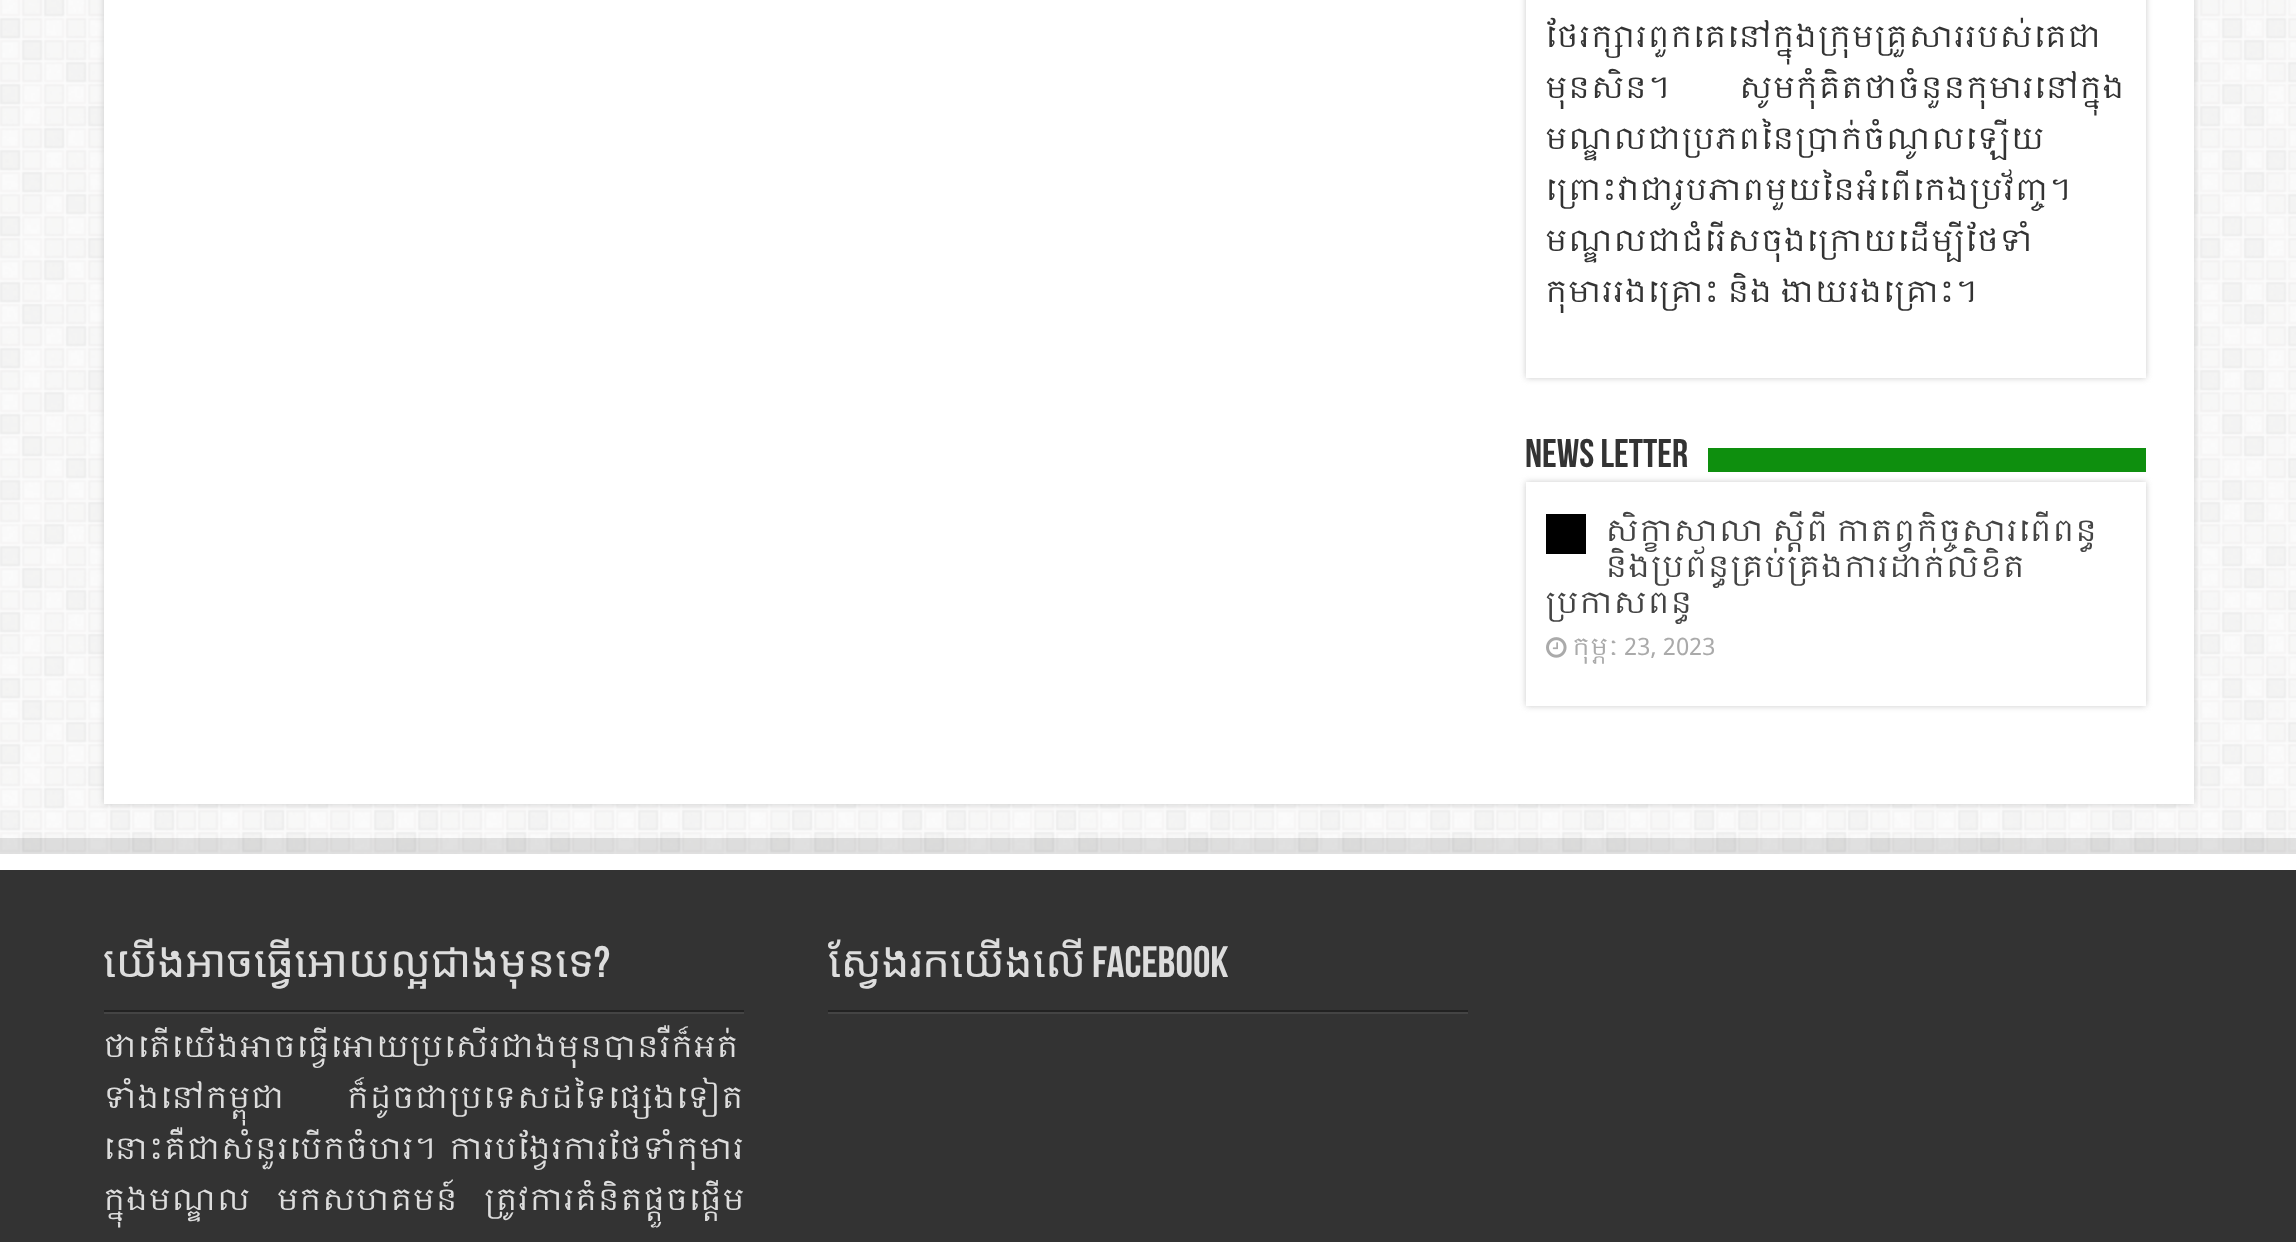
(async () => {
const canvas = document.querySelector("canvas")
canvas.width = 2296
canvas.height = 1242
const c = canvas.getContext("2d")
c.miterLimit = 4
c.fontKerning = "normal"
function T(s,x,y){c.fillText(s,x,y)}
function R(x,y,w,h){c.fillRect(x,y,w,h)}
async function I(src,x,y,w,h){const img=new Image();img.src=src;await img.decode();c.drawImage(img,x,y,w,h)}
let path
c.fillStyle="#fff"
R(0,0,2296,1242)
await I("1.png",0,0,2296,854)
c.fillStyle="#cacaca"
c.filter="blur(3px)"
c.beginPath()
c.rect(104,-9,2090,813)
c.fill()
c.filter="none"
c.fillStyle="#fff"
R(104,0,2090,804)
c.save()
path = new Path2D("M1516 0h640v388h-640zm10-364h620v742h-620z")
c.clip(path,"evenodd")
c.fillStyle="#cacaca"
c.filter="blur(3px)"
c.beginPath()
c.rect(1526,-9,620,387)
c.fill()
c.filter="none"
c.restore()
c.font="30px Khmer"
c.fillStyle="#333"
T("ថែរក្សារពួកគេនៅក្នុងក្រុមគ្រួសាររបស់គេជា",1545,47)
c.wordSpacing="61px"
T("មុនសិន។ សូមកុំគិតថាចំនួនកុមារនៅក្នុង",1545,98)
c.wordSpacing="0px"
T("មណ្ឌលជាប្រភពនៃប្រាក់ចំណូលឡើយ",1545,149)
T("ព្រោះវាជារូបភាពមួយនៃអំពើកេងប្រវ័ញ្ច។",1545,200)
T("មណ្ឌលជាជំរើសចុងក្រោយដើម្បីថែទាំ",1545,251)
T("កុមាររងគ្រោះ និង ងាយរងគ្រោះ។",1545,302)
c.font="bold 40px Bebas Neue"
T("News Letter",1525,467)
c.fillStyle="#0e8f0e"
R(1708,448,438,24)
c.save()
path = new Path2D("M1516 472h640v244h-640zm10 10h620v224h-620z")
c.clip(path,"evenodd")
c.fillStyle="#cacaca"
c.filter="blur(3px)"
c.beginPath()
c.rect(1526,482,620,224)
c.fill()
c.filter="none"
c.restore()
c.font="30px Khmer"
c.fillStyle="#444"
T("សិក្ខាសាលា ស្តីពី កាតព្វកិច្ចសារពើពន្ធ",1605,541)
T("និងប្រព័ន្ធគ្រប់គ្រងការដាក់លិខិត",1605,577)
T("ប្រកាសពន្ធ",1545,613)
c.fillStyle="#000"
R(1546,514,40,40)
await I("2.png",1546,637,21,21)
c.font="24px Khmer"
c.fillStyle="#aaa"
T("កុម្ភៈ",1572,655)
c.font="24px Droid Sans"
T("23, 2023",1624,655)
c.fillStyle="#0000001a"
R(0,838,2296,16)
c.fillStyle="#333"
R(0,870,2296,372)
c.fillStyle="#222"
R(104,1010,640,2)
c.font="44px Noto Sans Khmer"
c.fillStyle="#ddd"
T("យើងអាចធ្វើអោយល្អជាងមុនទេ",103,977)
c.font="bold 44px Bebas Neue"
T("?",594,977)
c.fillStyle="#444"
R(104,1012,640,2)
c.font="30px Khmer"
c.fillStyle="#ddd"
T("ថាតើយើងអាចធ្វើអោយប្រសើរជាងមុនបានរឺក៏អត់",103,1057)
c.wordSpacing="54px"
T("ទាំងនៅកម្ពុជា ក៏ដូចជាប្រទេសដទៃផ្សេងទៀត",103,1108)
c.wordSpacing="5px"
T("នោះគឺជាសំនួរបើកចំហរ។ ការបង្វែរការថែទាំកុមារ",103,1159)
c.wordSpacing="18px"
T("ក្នុងមណ្ឌល មកសហគមន៍ ត្រូវការគំនិតផ្តួចផ្តើម",103,1210)
c.fillStyle="#222"
R(828,1010,640,2)
c.wordSpacing="0px"
c.font="44px Noto Sans Khmer"
c.fillStyle="#ddd"
T("ស្វែងរកយើងលើ",828,977)
c.font="bold 44px Bebas Neue"
T("Facebook",1092,977)
c.fillStyle="#444"
R(828,1012,640,2)
})()
